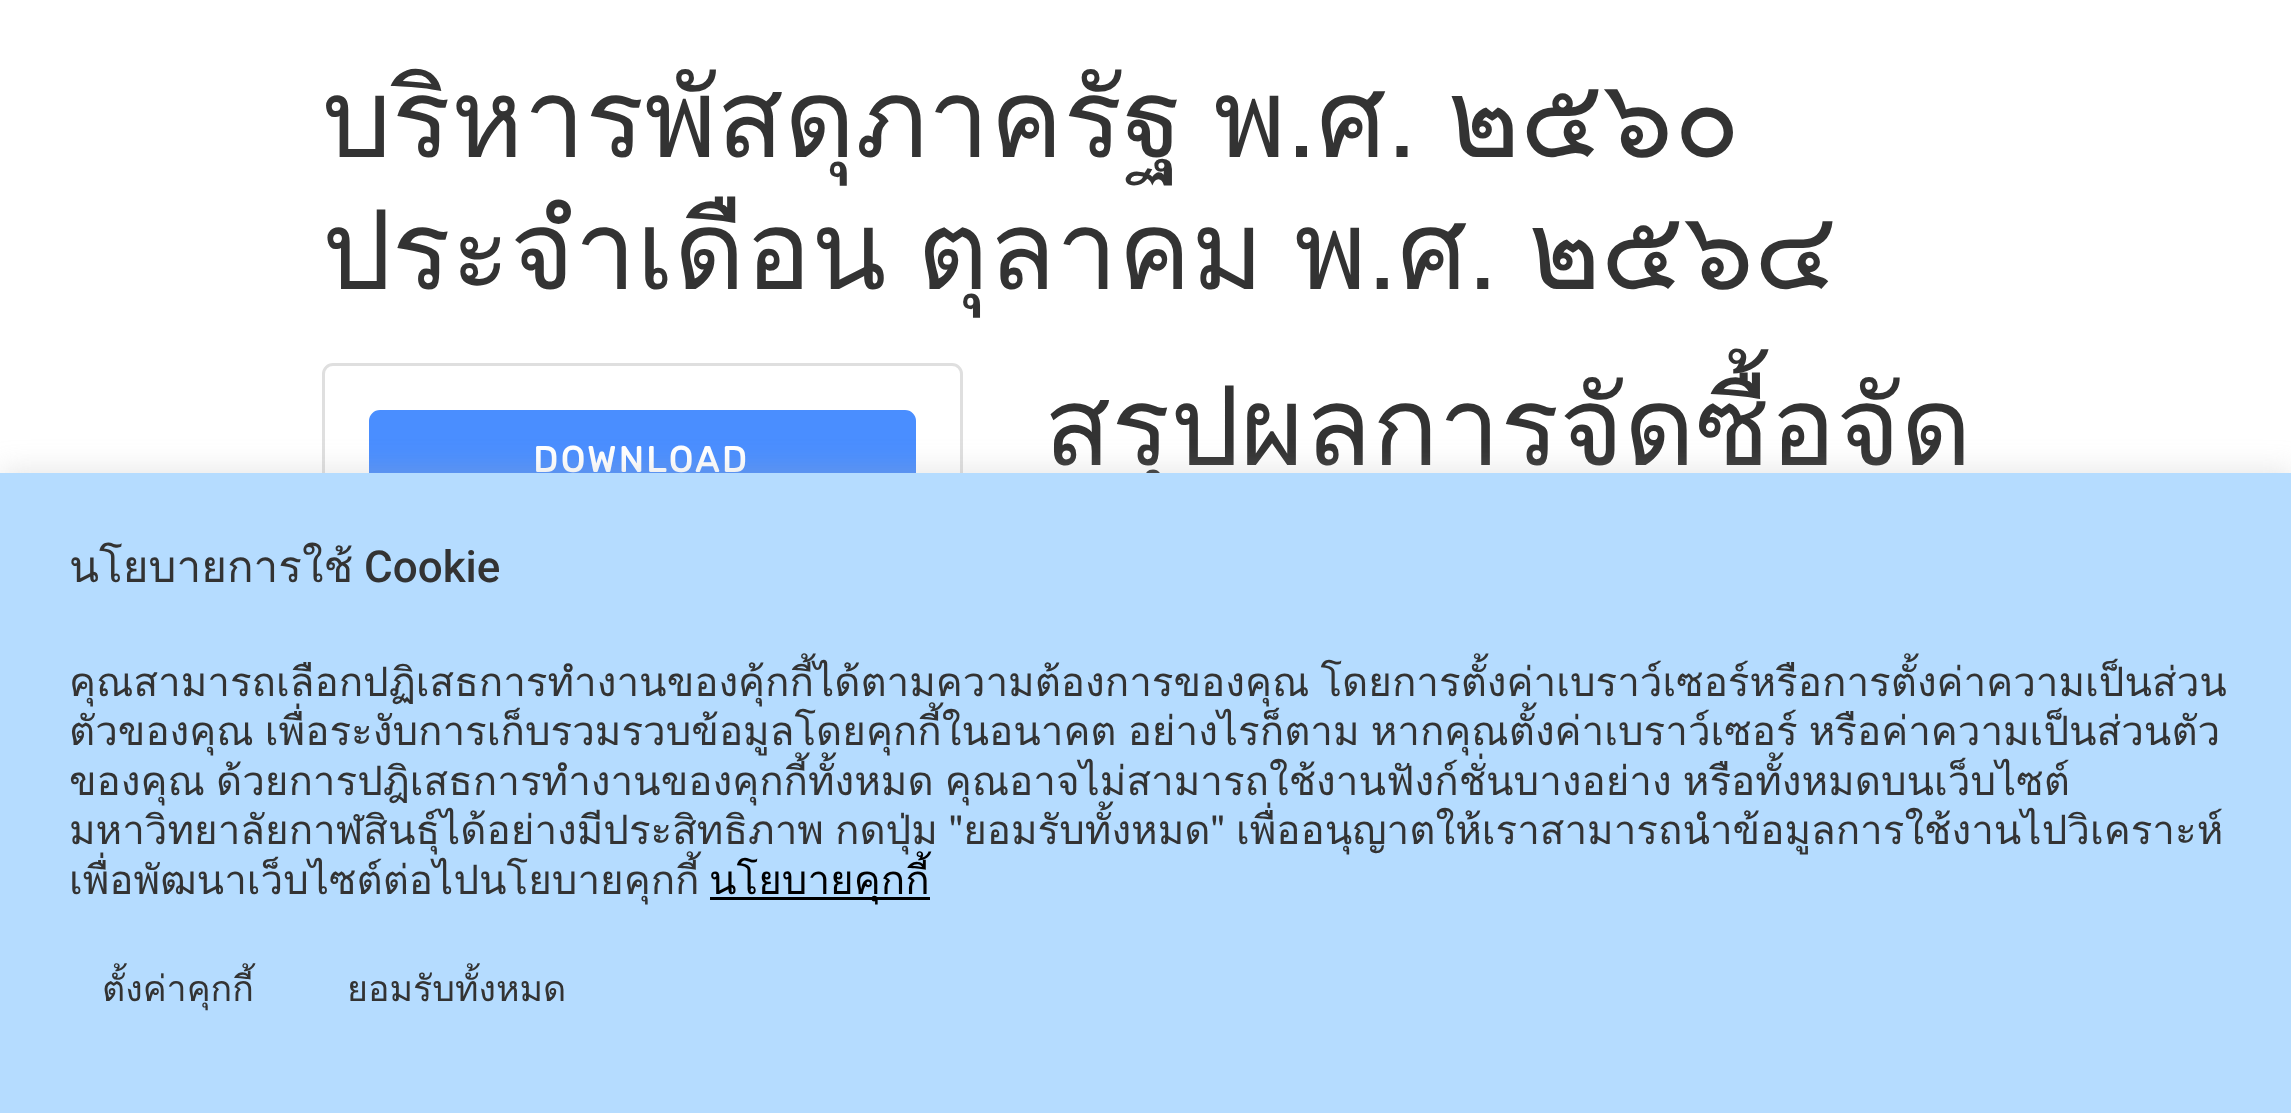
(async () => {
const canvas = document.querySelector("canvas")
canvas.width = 2291
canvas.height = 1113
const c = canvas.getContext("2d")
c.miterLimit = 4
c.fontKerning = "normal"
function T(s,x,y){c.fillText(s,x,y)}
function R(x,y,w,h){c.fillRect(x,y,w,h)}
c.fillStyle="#fff"
R(0,0,2291,1113)
c.wordSpacing="-6.5px"
c.font="110px Loma"
c.fillStyle="#333"
T("บริหารพัสดุภาครัฐ พ.ศ. ๒๕๖๐",322,157)
T("ประจำเดือน ตุลาคม พ.ศ. ๒๕๖๔",322,289)
c.beginPath()
c.roundRect(323.5,364.5,638,192,9.5)
c.strokeStyle="#dfdfdf"
c.lineWidth=3
c.stroke()
c.fillStyle="#4a8eff"
c.beginPath()
c.roundRect(370.5,411.5,544,99,9.5)
c.fill()
c.strokeStyle="#4a8eff"
c.stroke()
c.letterSpacing="2.75px"
c.wordSpacing="0px"
c.font="bold 35.75px Rubik"
c.fillStyle="#fff"
T("DOWNLOAD",533,472)
c.letterSpacing="0px"
c.font="110px Loma"
c.fillStyle="#333"
T("สรุปผลการจัดซื้อจัด",1044,465)
c.fillStyle="#acabab4d"
c.filter="blur(14px)"
c.beginPath()
c.rect(0,470,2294,641)
c.fill()
c.filter="none"
c.fillStyle="#b5dcff"
R(0,473,2291,640)
c.font="44px Loma"
c.fillStyle="#333"
T("นโยบายการใช้",69,582)
c.font="500 44px Roboto"
T("Cookie",364,582)
c.wordSpacing="-2.5px"
c.font="40.33px Loma"
T("คุณสามารถเลือกปฏิเสธการทำงานของคุ้กกี้ได้ตามความต้องการของคุณ โดยการตั้งค่าเบราว์เซอร์หรือการตั้งค่าความเป็นส่วน",69,696)
T("ตัวของคุณ เพื่อระงับการเก็บรวมรวบข้อมูลโดยคุกกี้ในอนาคต อย่างไรก็ตาม หากคุณตั้งค่าเบราว์เซอร์ หรือค่าความเป็นส่วนตัว",69,745)
T("ของคุณ ด้วยการปฎิเสธการทำงานของคุกกี้ทั้งหมด คุณอาจไม่สามารถใช้งานฟังก์ชั่นบางอย่าง หรือทั้งหมดบนเว็บไซต์",69,795)
T("มหาวิทยาลัยกาฬสินธุ์ได้อย่างมีประสิทธิภาพ กดปุ่ม \"ยอมรับทั้งหมด\" เพื่ออนุญาตให้เราสามารถนำข้อมูลการใช้งานไปวิเคราะห์",69,844)
c.wordSpacing="0px"
T("เพื่อพัฒนาเว็บไซต์ต่อไปนโยบายคุกกี้",69,894)
c.fillStyle="#000"
R(710,897,220,3)
T("นโยบายคุกกี้",709,894)
c.font="35.75px Loma"
c.fillStyle="#333"
T("ตั้งค่าคุกกี้",102,1001)
T("ยอมรับทั้งหมด",347,1001)
})()
